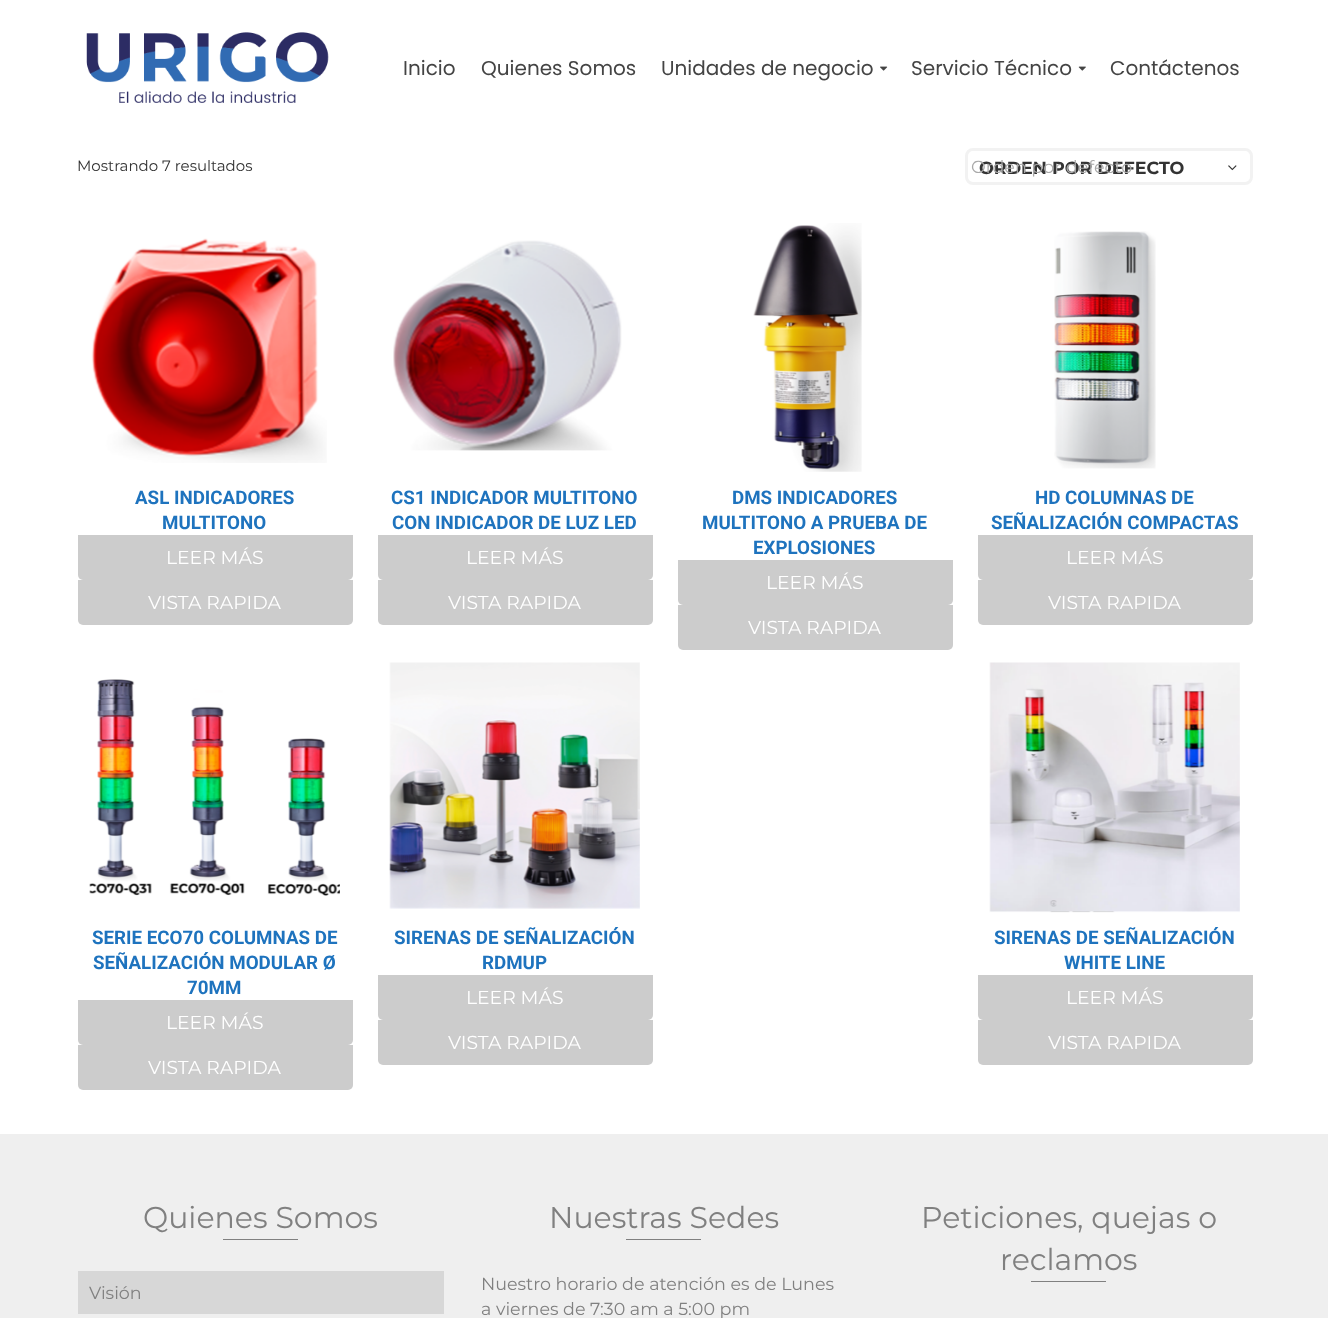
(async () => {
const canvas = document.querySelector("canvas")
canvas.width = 1328
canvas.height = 1318
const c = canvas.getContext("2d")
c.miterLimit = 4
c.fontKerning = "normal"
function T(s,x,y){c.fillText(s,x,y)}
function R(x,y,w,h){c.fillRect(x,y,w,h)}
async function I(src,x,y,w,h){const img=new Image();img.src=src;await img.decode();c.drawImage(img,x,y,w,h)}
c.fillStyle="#fff"
R(0,0,1328,1318)
await I("1.png",86,32,243,71)
c.font="20px Poppins"
c.fillStyle="#444"
T("Inicio",403,75)
T("Quienes Somos",481,75)
T("Unidades de negocio",661,75)
await I("2.png",880,66,8,5)
T("Servicio Técnico",911,75)
await I("3.png",1078,66,8,5)
T("Contáctenos",1110,75)
c.font="15px Montserrat"
c.fillStyle="#333"
T("Mostrando 7 resultados",77,171)
c.beginPath()
c.roundRect(966.5,149.5,285,34,6.5)
c.strokeStyle="#f2f2f2"
c.lineWidth=3
c.stroke()
c.font="bold 17.5px Montserrat"
T("ORDEN POR DEFECTO",979,174)
c.font="17.5px Montserrat"
c.fillStyle="#a9a9a9"
T("Orden por defecto",971,173)
await I("4.png",1228,165,9,6)
await I("5.png",91,238,236,225)
c.font="bold 18.75px Roboto"
c.fillStyle="#1e73be"
T("ASL INDICADORES",135,504)
T("MULTITONO",162,529)
c.fillStyle="#ccc"
c.beginPath()
c.roundRect(78,535,275,45,[0,0,5,5])
c.fill()
c.font="18.75px Montserrat"
c.fillStyle="#fff"
T("LEER MÁS",166,564)
c.fillStyle="#ccc"
c.beginPath()
c.roundRect(78,580,275,45,[0,0,5,5])
c.fill()
c.fillStyle="#fff"
T("VISTA RAPIDA",148,609)
await I("6.png",393,240,229,211)
c.font="bold 18.75px Roboto"
c.fillStyle="#1e73be"
T("CS1 INDICADOR MULTITONO",391,504)
T("CON INDICADOR DE LUZ LED",392,529)
c.fillStyle="#ccc"
c.beginPath()
c.roundRect(378,535,275,45,[0,0,5,5])
c.fill()
c.font="18.75px Montserrat"
c.fillStyle="#fff"
T("LEER MÁS",466,564)
c.fillStyle="#ccc"
c.beginPath()
c.roundRect(378,580,275,45,[0,0,5,5])
c.fill()
c.fillStyle="#fff"
T("VISTA RAPIDA",448,609)
await I("7.png",753,223,109,249)
c.font="bold 18.75px Roboto"
c.fillStyle="#1e73be"
T("DMS INDICADORES",732,504)
T("MULTITONO A PRUEBA DE",702,529)
T("EXPLOSIONES",753,554)
c.fillStyle="#ccc"
c.beginPath()
c.roundRect(678,560,275,45,[0,0,5,5])
c.fill()
c.font="18.75px Montserrat"
c.fillStyle="#fff"
T("LEER MÁS",766,589)
c.fillStyle="#ccc"
c.beginPath()
c.roundRect(678,605,275,45,[0,0,5,5])
c.fill()
c.fillStyle="#fff"
T("VISTA RAPIDA",748,634)
await I("8.png",1054,231,102,238)
c.font="bold 18.75px Roboto"
c.fillStyle="#1e73be"
T("HD COLUMNAS DE",1035,504)
T("SEÑALIZACIÓN COMPACTAS",991,529)
c.fillStyle="#ccc"
c.beginPath()
c.roundRect(978,535,275,45,[0,0,5,5])
c.fill()
c.font="18.75px Montserrat"
c.fillStyle="#fff"
T("LEER MÁS",1066,564)
c.fillStyle="#ccc"
c.beginPath()
c.roundRect(978,580,275,45,[0,0,5,5])
c.fill()
c.fillStyle="#fff"
T("VISTA RAPIDA",1048,609)
await I("9.png",89,679,251,217)
c.font="bold 18.75px Roboto"
c.fillStyle="#1e73be"
T("SERIE ECO70 COLUMNAS DE",92,944)
T("SEÑALIZACIÓN MODULAR Ø",93,969)
T("70MM",187,994)
c.fillStyle="#ccc"
c.beginPath()
c.roundRect(78,1000,275,45,[0,0,5,5])
c.fill()
c.font="18.75px Montserrat"
c.fillStyle="#fff"
T("LEER MÁS",166,1029)
c.fillStyle="#ccc"
c.beginPath()
c.roundRect(78,1045,275,45,[0,0,5,5])
c.fill()
c.fillStyle="#fff"
T("VISTA RAPIDA",148,1074)
await I("10.png",389,662,251,247)
c.font="bold 18.75px Roboto"
c.fillStyle="#1e73be"
T("SIRENAS DE SEÑALIZACIÓN",394,944)
T("RDMUP",482,969)
c.fillStyle="#ccc"
c.beginPath()
c.roundRect(378,975,275,45,[0,0,5,5])
c.fill()
c.font="18.75px Montserrat"
c.fillStyle="#fff"
T("LEER MÁS",466,1004)
c.fillStyle="#ccc"
c.beginPath()
c.roundRect(378,1020,275,45,[0,0,5,5])
c.fill()
c.fillStyle="#fff"
T("VISTA RAPIDA",448,1049)
await I("11.png",989,662,251,251)
c.font="bold 18.75px Roboto"
c.fillStyle="#1e73be"
T("SIRENAS DE SEÑALIZACIÓN",994,944)
T("WHITE LINE",1064,969)
c.fillStyle="#ccc"
c.beginPath()
c.roundRect(978,975,275,45,[0,0,5,5])
c.fill()
c.font="18.75px Montserrat"
c.fillStyle="#fff"
T("LEER MÁS",1066,1004)
c.fillStyle="#ccc"
c.beginPath()
c.roundRect(978,1020,275,45,[0,0,5,5])
c.fill()
c.fillStyle="#fff"
T("VISTA RAPIDA",1048,1049)
c.fillStyle="#efefef"
R(0,1134,1328,184)
c.font="30px Montserrat"
c.fillStyle="#808080"
T("Quienes Somos",143,1228)
R(223,1239,75,1)
c.fillStyle="#d7d7d7"
R(78,1271,366,43)
c.font="17.5px Montserrat"
c.fillStyle="#808080"
T("Visión",89,1299)
c.font="30px Montserrat"
T("Nuestras Sedes",549,1228)
R(626,1239,75,1)
c.font="17.5px Montserrat"
T("Nuestro horario de atención es de Lunes",481,1290)
T("a viernes de 7:30 am a 5:00 pm",481,1315)
c.font="30px Montserrat"
T("Peticiones, quejas o",921,1228)
T("reclamos",1000,1270)
R(1031,1281,75,1)
})()
